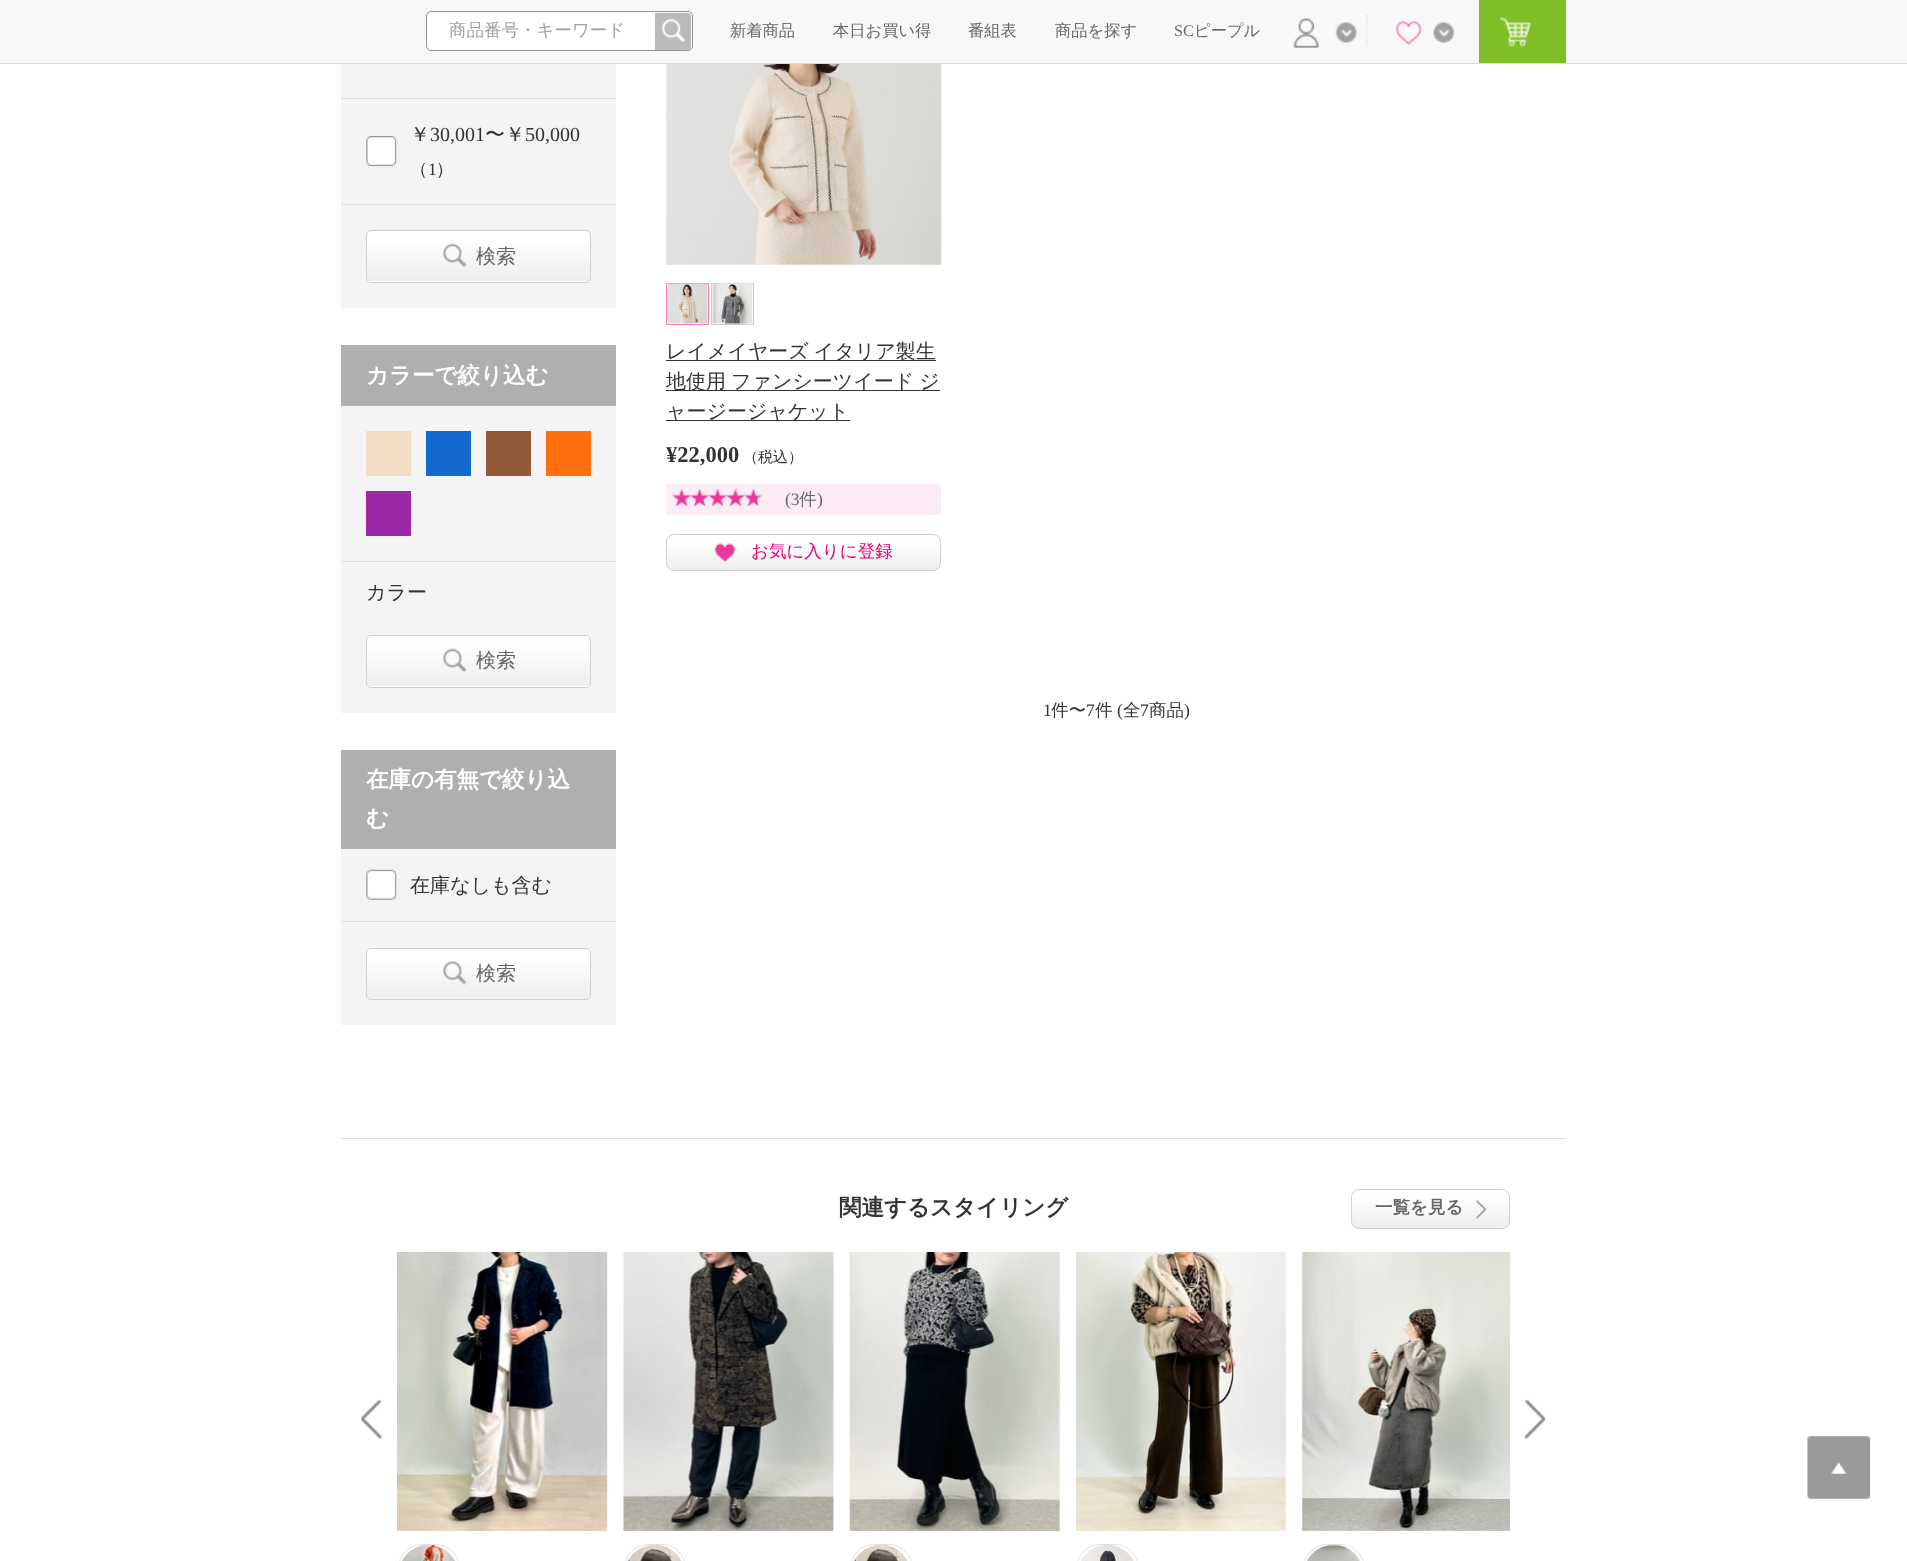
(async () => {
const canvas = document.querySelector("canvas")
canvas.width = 1907
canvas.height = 1561
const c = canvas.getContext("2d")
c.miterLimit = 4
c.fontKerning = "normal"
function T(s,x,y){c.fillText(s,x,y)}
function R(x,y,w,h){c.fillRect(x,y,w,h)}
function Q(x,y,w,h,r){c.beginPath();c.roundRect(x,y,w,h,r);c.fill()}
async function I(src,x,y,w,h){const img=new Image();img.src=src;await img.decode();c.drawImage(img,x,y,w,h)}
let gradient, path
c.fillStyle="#fff"
R(0,0,1907,1561)
c.fillStyle="#f8f8f8"
R(0,0,1907,63)
c.fillStyle="#ddd"
R(0,63,1907,1)
c.beginPath()
c.roundRect(426.5,11.5,266,39,4.5)
c.strokeStyle="#959595"
c.stroke()
c.fillStyle="#fff"
c.beginPath()
c.roundRect(428,13,227,37,[4,0,0,4])
c.fill()
c.font="500 17.5px WenQuanYi Zen Hei"
c.fillStyle="#a0a0a0"
T("商品番号・キーワード",449,36)
c.fillStyle="#bbb"
c.beginPath()
c.roundRect(655,13,36,37,[0,4,4,0])
c.fill()
await I("1.png",661,18,25,25)
c.font="500 16.25px WenQuanYi Zen Hei"
c.fillStyle="#666"
T("新着商品",730,36)
T("本日お買い得",833,36)
T("番組表",968,36)
T("商品を探す",1055,36)
c.font="16.25px Liberation Serif"
T("SC",1174,36)
c.font="500 16.25px WenQuanYi Zen Hei"
T("ピープル",1194,36)
path = new Path2D("M1367 15v32.5")
c.strokeStyle="#ddd"
c.lineWidth=1.2
c.setLineDash([1.25,1.25])
c.stroke(path)
await I("2.png",1293,18,26,30)
await I("3.png",1335,22,22,21)
await I("4.png",1395,20,27,25)
await I("5.png",1433,22,21,21)
c.fillStyle="#7fbe26"
R(1479,0,87,63)
await I("6.png",1499,17,33,30)
c.fillStyle="#f4f4f4"
R(341,64,275,34)
c.fillStyle="#ddd"
R(341,98,275,1)
c.fillStyle="#f4f4f4"
R(341,99,275,105)
c.fillStyle="#ddd"
R(341,204,275,1)
await I("7.png",366,136,31,30)
c.font="500 20px WenQuanYi Zen Hei"
c.fillStyle="#333"
T("￥",410,141)
c.font="20px Liberation Serif"
T("30,001",430,141)
c.font="500 20px WenQuanYi Zen Hei"
T("〜￥",485,141)
c.font="20px Liberation Serif"
T("50,000",525,141)
c.font="500 17.5px WenQuanYi Zen Hei"
T("（",410,175)
c.font="17.5px Liberation Serif"
T("1",428,175)
c.font="500 17.5px WenQuanYi Zen Hei"
T("）",436,175)
c.fillStyle="#f4f4f4"
R(341,205,275,103)
c.save()
c.beginPath()
c.roundRect(366,230,225,53,5)
c.clip()
gradient = c.createLinearGradient(479,231,479,281)
gradient.addColorStop(.2,"#fff")
gradient.addColorStop(.97,"#eee")
c.fillStyle = gradient
R(366,231,225,50)
gradient = c.createLinearGradient(479,281,479,331)
gradient.addColorStop(.2,"#fff")
gradient.addColorStop(.97,"#eee")
c.fillStyle = gradient
R(366,281,225,2)
c.restore()
c.beginPath()
c.roundRect(366.5,230.5,224,52,4.5)
c.strokeStyle="#d0d0d0"
c.lineWidth=1
c.setLineDash([])
c.stroke()
await I("8.png",442,243,25,25)
c.font="500 20px WenQuanYi Zen Hei"
c.fillStyle="#666"
T("検索",476,263)
c.fillStyle="#afafaf"
R(341,345,275,61)
c.font="bold 22.5px WenQuanYi Zen Hei"
c.fillStyle="#fff"
T("カラーで絞り込む",366,383)
c.fillStyle="#f4f4f4"
R(341,406,275,307)
c.fillStyle="#ddd"
R(341,561,275,1)
c.fillStyle="#f2dec4"
R(366,431,45,45)
c.fillStyle="#1268cc"
R(426,431,45,45)
c.fillStyle="#915a38"
R(486,431,45,45)
c.fillStyle="#ff6f0f"
R(546,431,45,45)
c.fillStyle="#9b29a5"
R(366,491,45,45)
c.font="500 20px WenQuanYi Zen Hei"
c.fillStyle="#333"
T("カラー",366,599)
c.save()
c.beginPath()
c.roundRect(366,635,225,53,5)
c.clip()
gradient = c.createLinearGradient(479,636,479,686)
gradient.addColorStop(.2,"#fff")
gradient.addColorStop(.97,"#eee")
c.fillStyle = gradient
R(366,636,225,50)
gradient = c.createLinearGradient(479,686,479,736)
gradient.addColorStop(.2,"#fff")
gradient.addColorStop(.97,"#eee")
c.fillStyle = gradient
R(366,686,225,2)
c.restore()
c.beginPath()
c.roundRect(366.5,635.5,224,52,4.5)
c.stroke()
await I("8.png",442,648,25,25)
c.fillStyle="#666"
T("検索",476,667)
c.fillStyle="#afafaf"
R(341,750,275,99)
c.font="bold 22.5px WenQuanYi Zen Hei"
c.fillStyle="#fff"
T("在庫の有無で絞り込",366,787)
T("む",366,826)
c.fillStyle="#f4f4f4"
R(341,849,275,176)
c.fillStyle="#ddd"
R(341,921,275,1)
await I("9.png",366,869,31,31)
c.font="500 20px WenQuanYi Zen Hei"
c.fillStyle="#333"
T("在庫なしも含む",410,892)
c.save()
c.beginPath()
c.roundRect(366,948,225,52,5)
c.clip()
gradient = c.createLinearGradient(479,949,479,999)
gradient.addColorStop(.2,"#fff")
gradient.addColorStop(.97,"#eee")
c.fillStyle = gradient
R(366,949,225,50)
c.restore()
c.beginPath()
c.roundRect(366.5,948.5,224,51,4.5)
c.stroke()
await I("10.png",442,961,25,24)
c.fillStyle="#666"
T("検索",476,980)
await I("11.png",666,64,276,201)
c.strokeStyle="#f17fbf"
c.strokeRect(666.5,283.5,42,41)
await I("12.png",667,283,41,41)
c.strokeStyle="#ccc"
c.strokeRect(711.5,283.5,42,41)
await I("13.png",712,283,41,41)
c.fillStyle="#333"
R(666,360,270,1)
c.wordSpacing="-1px"
T("レイメイヤーズ イタリア製生",666,358)
R(666,390,274,1)
T("地使用 ファンシーツイード ジ",666,388)
R(666,420,184,1)
c.wordSpacing="0px"
T("ャージージャケット",666,418)
c.font="bold 22.5px Liberation Serif"
T("¥22,000",666,462)
c.font="500 15px WenQuanYi Zen Hei"
T("（税込）",743,462)
c.fillStyle="#fdebf5"
Q(666,484,275,31,4)
await I("14.png",672,488,91,18)
await I("15.png",672,488,86,18)
c.font="17.5px Liberation Serif"
c.fillStyle="#666"
T("(3",785,505)
c.font="500 17.5px WenQuanYi Zen Hei"
T("件",799,505)
c.font="17.5px Liberation Serif"
T(")",817,505)
c.save()
c.beginPath()
c.roundRect(666,534,275,37,8)
c.clip()
gradient = c.createLinearGradient(804,535,804,570)
gradient.addColorStop(.2,"#fff")
gradient.addColorStop(.97,"#eee")
c.fillStyle = gradient
R(666,535,275,35)
c.restore()
c.beginPath()
c.roundRect(666.5,534.5,274,36,7.5)
c.strokeStyle="#d0d0d0"
c.stroke()
await I("16.png",715,543,20,20)
c.font="500 17.5px WenQuanYi Zen Hei"
c.fillStyle="#e4007f"
T("お気に入りに登録",751,557)
c.font="17.5px Liberation Serif"
c.fillStyle="#333"
T("1",1043,716)
c.font="500 17.5px WenQuanYi Zen Hei"
T("件〜",1051,716)
c.font="17.5px Liberation Serif"
T("7",1086,716)
c.font="500 17.5px WenQuanYi Zen Hei"
T("件",1095,716)
c.font="17.5px Liberation Serif"
T("(",1117,716)
c.font="500 17.5px WenQuanYi Zen Hei"
T("全",1123,716)
c.font="17.5px Liberation Serif"
T("7",1140,716)
c.font="500 17.5px WenQuanYi Zen Hei"
T("商品",1149,716)
c.font="17.5px Liberation Serif"
T(")",1184,716)
c.fillStyle="#ddd"
R(341,1138,1225,1)
c.font="bold 22.5px WenQuanYi Zen Hei"
c.fillStyle="#333"
T("関連するスタイリング",839,1215)
c.save()
c.beginPath()
c.roundRect(1351,1189,159,40,8)
c.clip()
gradient = c.createLinearGradient(1431,1190,1431,1228)
gradient.addColorStop(.2,"#fff")
gradient.addColorStop(.97,"#eee")
c.fillStyle = gradient
R(1351,1190,159,38)
c.restore()
c.beginPath()
c.roundRect(1351.5,1189.5,158,39,7.5)
c.stroke()
c.font="bold 17.5px WenQuanYi Zen Hei"
c.fillStyle="#666"
T("一覧を見る",1375,1213)
await I("17.png",1476,1200,11,19)
await I("18.png",397,1252,211,279)
c.beginPath()
c.roundRect(398.5,1544.5,61,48,30.5)
c.strokeStyle="#e1e1e1"
c.stroke()
await I("19.png",402,1545,54,16)
await I("20.png",622,1252,212,279)
c.beginPath()
c.roundRect(624.5,1544.5,61,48,30.5)
c.stroke()
await I("21.png",627,1545,55,16)
await I("22.png",849,1252,211,279)
c.beginPath()
c.roundRect(850.5,1544.5,62,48,30.5)
c.stroke()
await I("23.png",854,1545,54,16)
await I("24.png",1076,1252,210,279)
c.beginPath()
c.roundRect(1076.5,1544.5,62,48,30.5)
c.stroke()
await I("25.png",1081,1545,53,16)
await I("26.png",1301,1252,209,279)
c.beginPath()
c.roundRect(1303.5,1544.5,61,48,30.5)
c.stroke()
await I("27.png",1307,1545,53,16)
await I("28.png",361,1399,22,41)
await I("29.png",1523,1399,23,41)
await I("30.png",1807,1436,63,63)
})()
